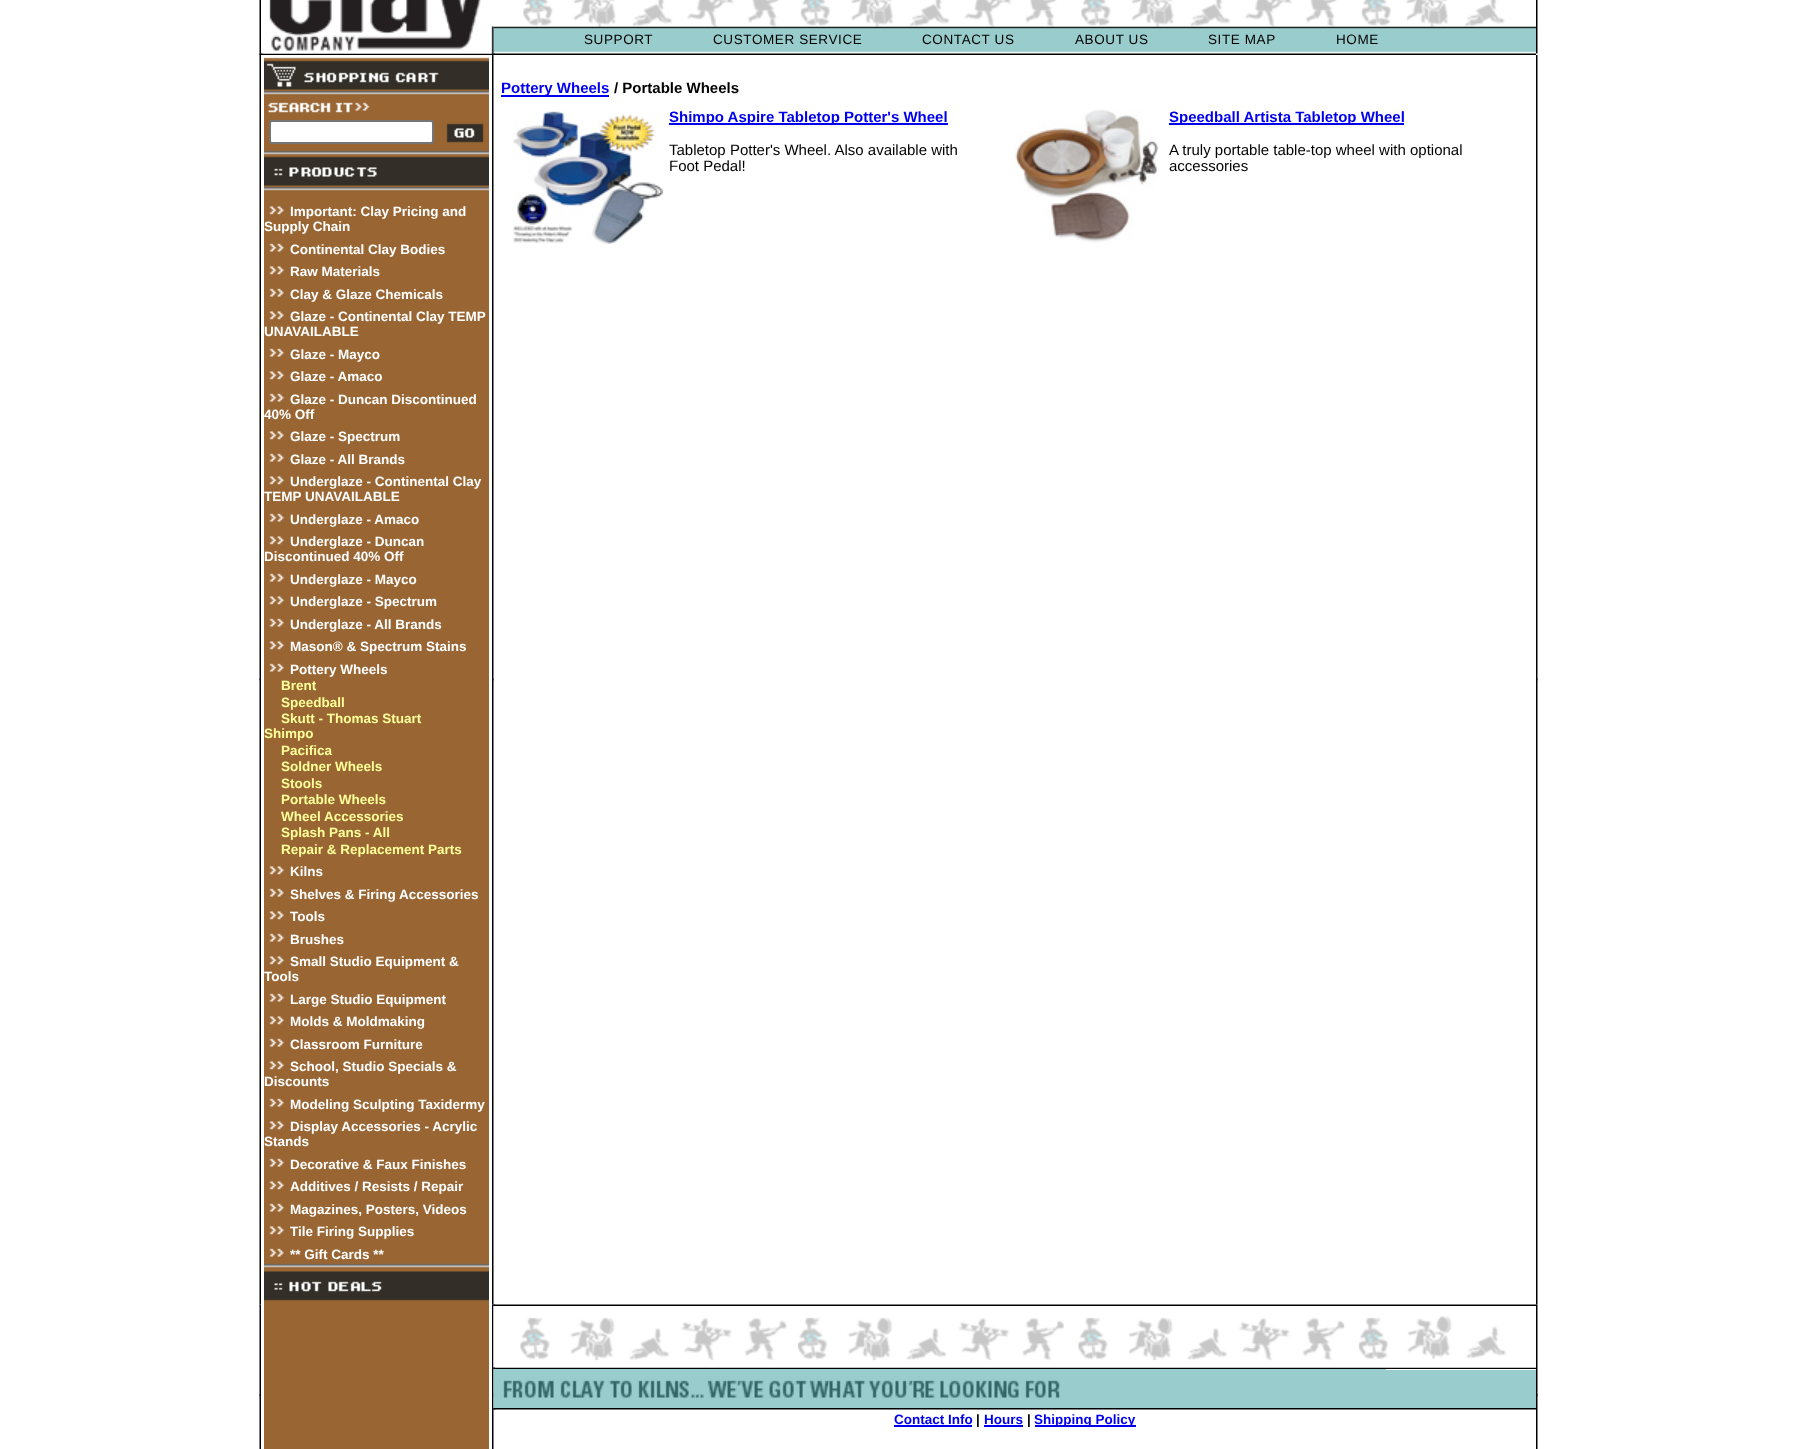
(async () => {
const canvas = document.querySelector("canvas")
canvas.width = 1796
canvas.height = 1449
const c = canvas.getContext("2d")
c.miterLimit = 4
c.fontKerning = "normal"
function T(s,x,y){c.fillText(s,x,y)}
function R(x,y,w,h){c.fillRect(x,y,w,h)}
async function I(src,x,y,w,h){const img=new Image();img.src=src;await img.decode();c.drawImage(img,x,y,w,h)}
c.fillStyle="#fff"
R(0,0,1796,1449)
await I("1.png",259,0,2,54)
await I("4.png",493,26,1043,27)
await I("8.png",261,53,231,2)
await I("10.png",492,53,2,2)
await I("12.png",493,53,1043,2)
await I("2.png",261,0,233,54)
await I("3.png",493,0,1043,27)
c.letterSpacing="0.6px"
c.font="13.5px Liberation Sans"
c.fillStyle="#000"
T("SUPPORT",584,44)
T("CUSTOMER SERVICE",713,44)
T("CONTACT US",922,44)
T("ABOUT US",1075,44)
T("SITE MAP",1208,44)
T("HOME",1336,44)
await I("5.png",1536,0,2,54)
await I("6.png",259,53,2,2)
await I("7.png",259,53,2,2)
await I("9.png",261,53,2,1)
await I("11.png",492,53,2,2)
await I("13.png",493,53,2,2)
await I("14.png",259,55,2,1250)
await I("15.png",259,679,1,2)
await I("16.png",492,55,2,1250)
await I("15.png",493,679,1,2)
c.fillStyle="#00e"
R(501,95,108,2)
c.letterSpacing="0px"
c.font="bold 15px Liberation Sans"
T("Pottery Wheels",501,93)
c.fillStyle="#000"
T("/ Portable Wheels",614,93)
await I("17.png",513,111,150,133)
c.fillStyle="#00e"
R(669,123,279,2)
T("Shimpo Aspire Tabletop Potter's Wheel",669,122)
c.font="15px Liberation Sans"
c.fillStyle="#000"
T("Tabletop Potter's Wheel. Also available with",669,155)
T("Foot Pedal!",669,171)
await I("18.png",1013,109,146,134)
c.fillStyle="#00e"
R(1169,123,235,2)
c.font="bold 15px Liberation Sans"
T("Speedball Artista Tabletop Wheel",1169,122)
c.font="15px Liberation Sans"
c.fillStyle="#000"
T("A truly portable table-top wheel with optional",1169,155)
T("accessories",1169,171)
await I("16.png",1536,55,2,1250)
await I("15.png",1537,679,1,2)
c.fillStyle="#963"
R(264,95,225,1354)
await I("19.png",264,56,225,39)
await I("20.png",268,102,102,11)
c.fillStyle="#fff"
c.beginPath()
c.roundRect(270,121,163,22,2)
c.fill()
c.strokeStyle="#767676"
c.lineWidth=2
c.stroke()
await I("21.png",446,123,38,20)
await I("22.png",264,150,225,41)
await I("23.png",269,206,15,9)
c.font="bold 13.5px Liberation Sans"
T("Important: Clay Pricing and",290,216)
T("Supply Chain",264,231)
await I("24.png",269,233,15,19)
T("Continental Clay Bodies",290,254)
await I("23.png",269,266,15,9)
T("Raw Materials",290,276)
await I("25.png",269,288,15,9)
T("Clay & Glaze Chemicals",290,299)
await I("23.png",269,311,15,9)
T("Glaze - Continental Clay TEMP",290,321)
T("UNAVAILABLE",264,336)
await I("25.png",269,348,15,9)
T("Glaze - Mayco",290,359)
await I("23.png",269,371,15,9)
T("Glaze - Amaco",290,381)
await I("25.png",269,393,15,9)
T("Glaze - Duncan Discontinued",290,404)
T("40% Off",264,419)
await I("23.png",269,431,15,9)
T("Glaze - Spectrum",290,441)
await I("25.png",269,453,15,9)
T("Glaze - All Brands",290,464)
await I("23.png",269,476,15,9)
T("Underglaze - Continental Clay",290,486)
T("TEMP UNAVAILABLE",264,501)
await I("25.png",269,513,15,9)
T("Underglaze - Amaco",290,524)
await I("23.png",269,536,15,9)
T("Underglaze - Duncan",290,546)
T("Discontinued 40% Off",264,561)
await I("25.png",269,573,15,9)
T("Underglaze - Mayco",290,584)
await I("23.png",269,596,15,9)
T("Underglaze - Spectrum",290,606)
await I("25.png",269,618,15,9)
T("Underglaze - All Brands",290,629)
await I("23.png",269,641,15,9)
T("Mason® & Spectrum Stains",290,651)
await I("25.png",269,663,15,9)
T("Pottery Wheels",290,674)
c.fillStyle="#ff9"
T("Brent",281,690)
T("Speedball",281,707)
T("Skutt - Thomas Stuart",281,723)
T("Shimpo",264,738)
T("Pacifica",281,755)
T("Soldner Wheels",281,771)
T("Stools",281,788)
T("Portable Wheels",281,804)
T("Wheel Accessories",281,821)
T("Splash Pans - All",281,837)
T("Repair & Replacement Parts",281,854)
await I("23.png",269,866,15,9)
c.fillStyle="#fff"
T("Kilns",290,876)
await I("25.png",269,888,15,9)
T("Shelves & Firing Accessories",290,899)
await I("23.png",269,911,15,9)
T("Tools",290,921)
await I("25.png",269,933,15,9)
T("Brushes",290,944)
await I("23.png",269,956,15,9)
T("Small Studio Equipment &",290,966)
T("Tools",264,981)
await I("25.png",269,993,15,9)
T("Large Studio Equipment",290,1004)
await I("23.png",269,1016,15,9)
T("Molds & Moldmaking",290,1026)
await I("25.png",269,1038,15,9)
T("Classroom Furniture",290,1049)
await I("23.png",269,1061,15,9)
T("School, Studio Specials &",290,1071)
T("Discounts",264,1086)
await I("25.png",269,1098,15,9)
T("Modeling Sculpting Taxidermy",290,1109)
await I("23.png",269,1121,15,9)
T("Display Accessories - Acrylic",290,1131)
T("Stands",264,1146)
await I("25.png",269,1158,15,9)
T("Decorative & Faux Finishes",290,1169)
await I("23.png",269,1181,15,9)
T("Additives / Resists / Repair",290,1191)
await I("25.png",269,1203,15,9)
T("Magazines, Posters, Videos",290,1214)
await I("23.png",269,1226,15,9)
T("Tile Firing Supplies",290,1236)
await I("25.png",269,1248,15,9)
T("** Gift Cards **",290,1259)
await I("26.png",264,1263,225,38)
await I("27.png",259,1304,2,145)
await I("28.png",259,1394,1,2)
await I("29.png",492,1304,2,145)
await I("28.png",493,1394,1,2)
await I("30.png",493,1304,1043,2)
await I("31.png",493,1304,2,2)
await I("33.png",493,1367,1043,2)
await I("32.png",493,1306,1043,62)
await I("34.png",493,1367,2,2)
c.fillStyle="#9cc"
R(1386,1370,150,38)
await I("35.png",493,1369,893,39)
await I("36.png",493,1408,1043,2)
await I("37.png",493,1408,2,2)
c.fillStyle="#00e"
T("Contact Info",894,1424)
R(894,1425,78,2)
c.fillStyle="#000"
T("|",976,1424)
c.fillStyle="#00e"
T("Hours",984,1424)
R(984,1425,39,2)
c.fillStyle="#000"
T("|",1027,1424)
c.fillStyle="#00e"
R(1035,1425,101,2)
T("Shipping Policy",1034,1424)
await I("29.png",1536,1304,2,145)
await I("28.png",1537,1394,1,2)
})()
